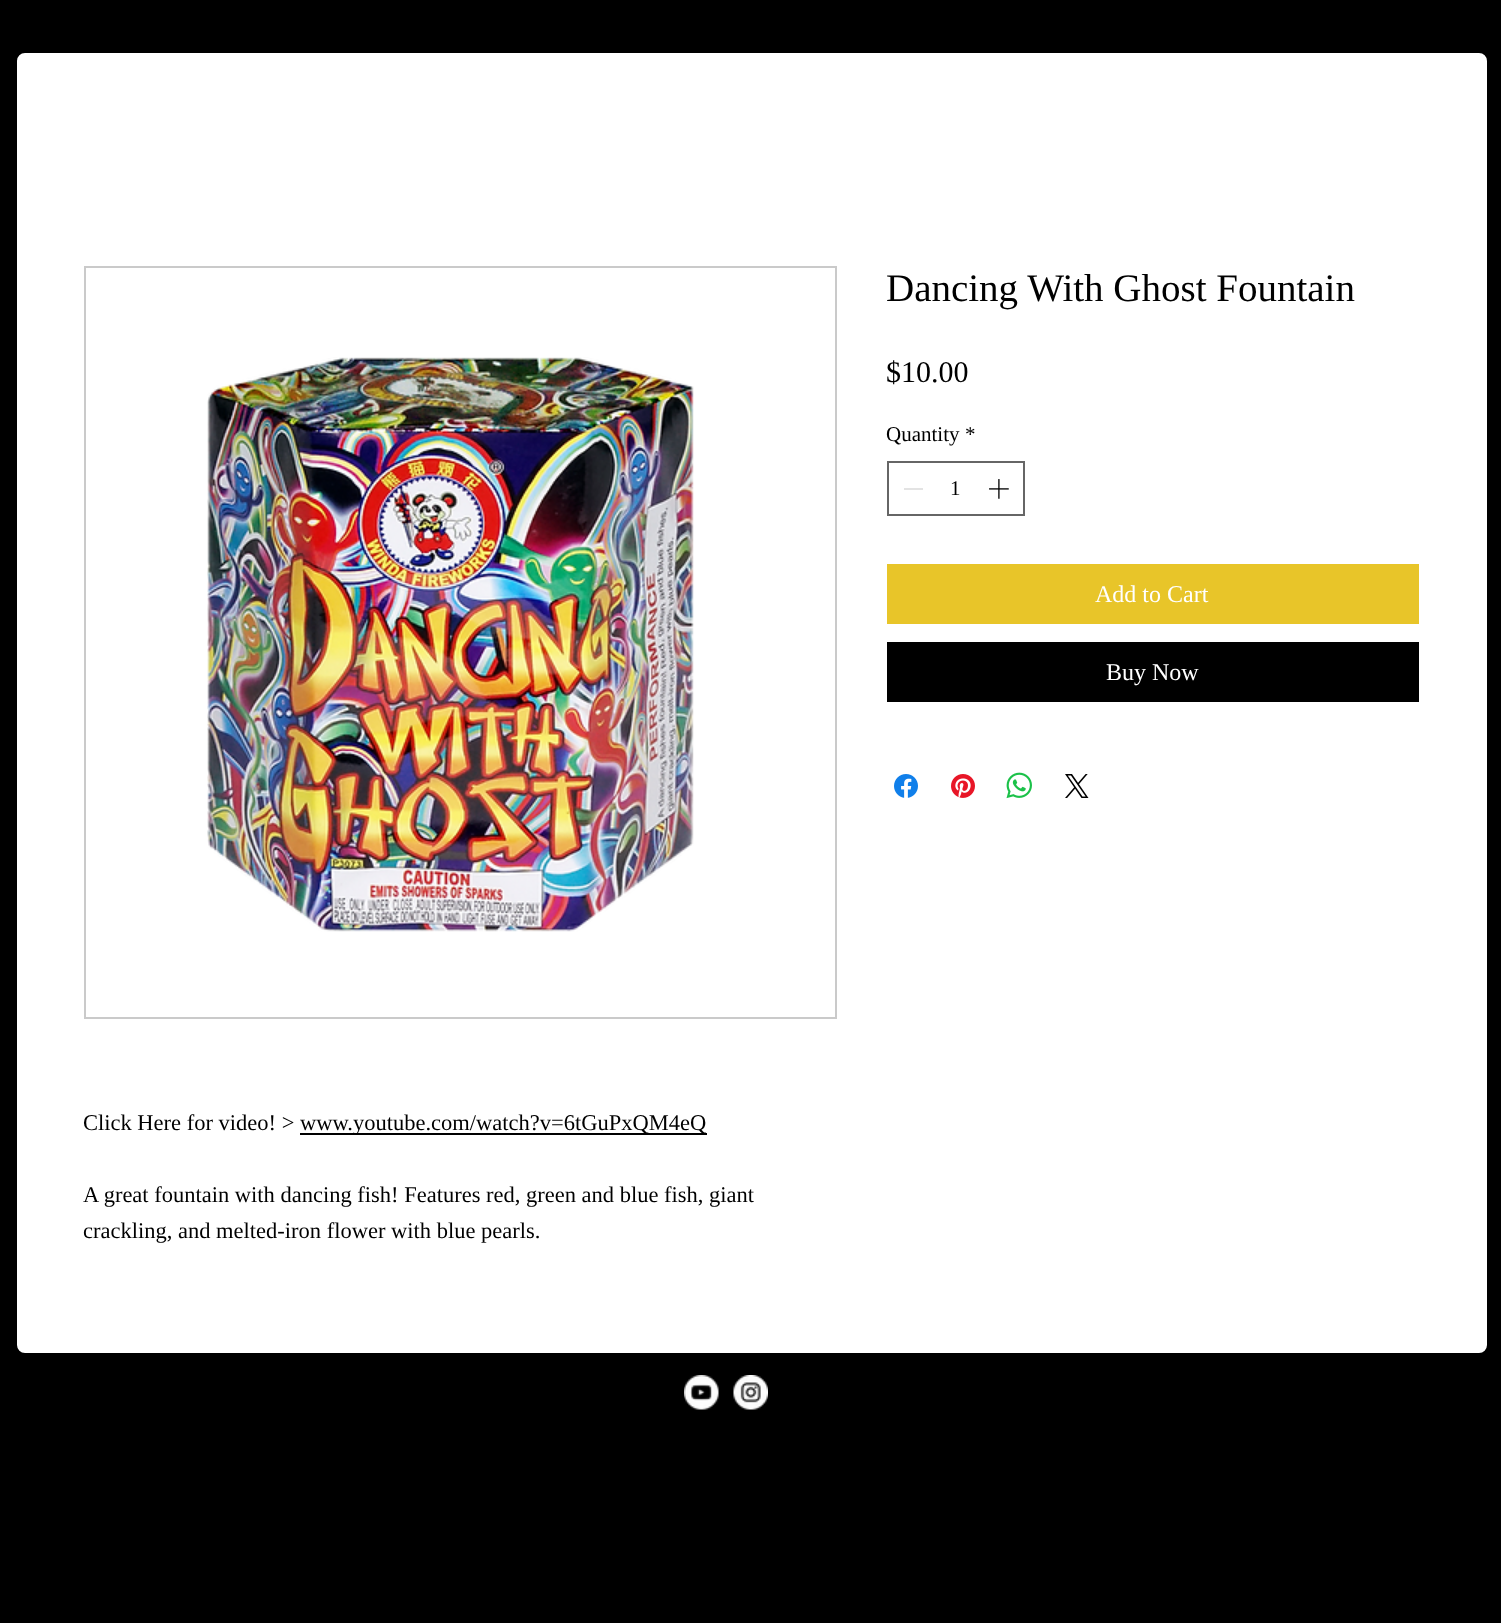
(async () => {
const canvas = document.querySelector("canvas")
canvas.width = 1501
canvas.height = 1623
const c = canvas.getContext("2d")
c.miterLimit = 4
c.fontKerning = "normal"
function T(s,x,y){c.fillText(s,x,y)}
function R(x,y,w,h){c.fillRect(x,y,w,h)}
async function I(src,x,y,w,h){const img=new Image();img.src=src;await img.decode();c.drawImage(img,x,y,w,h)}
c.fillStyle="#000"
R(0,0,1501,1623)
c.fillStyle="#fff"
c.beginPath()
c.roundRect(18,54,1468,1298,7)
c.fill()
c.strokeStyle="#fff"
c.lineWidth=2
c.stroke()
c.font="39px Liberation Serif"
c.fillStyle="#000"
T("Dancing With Ghost Fountain",886,301)
c.font="30px Liberation Serif"
T("$10.00",886,382)
c.font="21px Liberation Serif"
T("Quantity",886,441)
T("*",965,441)
c.strokeStyle="#666"
c.strokeRect(888,462,136,53)
c.fillStyle="#e3e3e3"
R(904,488,19,2)
c.fillStyle="#000"
T("1",950,495)
await I("1.png",989,479,20,20)
c.fillStyle="#e8c529"
R(887,564,532,60)
c.font="24px Liberation Serif"
c.fillStyle="#fff"
T("Add to Cart",1095,602)
c.fillStyle="#000"
R(887,642,532,60)
c.fillStyle="#fff"
T("Buy Now",1106,680)
await I("2.png",894,774,24,24)
await I("3.png",951,774,24,24)
await I("4.png",1006,772,26,27)
await I("5.png",1065,774,24,24)
c.strokeStyle="#cacaca"
c.strokeRect(85,267,751,751)
await I("6.png",207,357,487,575)
c.font="22.5px Liberation Serif"
c.fillStyle="#000"
T("Click Here for video! >",83,1130)
R(300,1133,407,2)
T("www.youtube.com/watch?v=6tGuPxQM4eQ",300,1130)
T("A great fountain with dancing fish! Features red, green and blue fish, giant",83,1202)
T("crackling, and melted-iron flower with blue pearls.",83,1238)
await I("7.png",684,1375,35,35)
await I("8.png",733,1375,35,35)
})()
